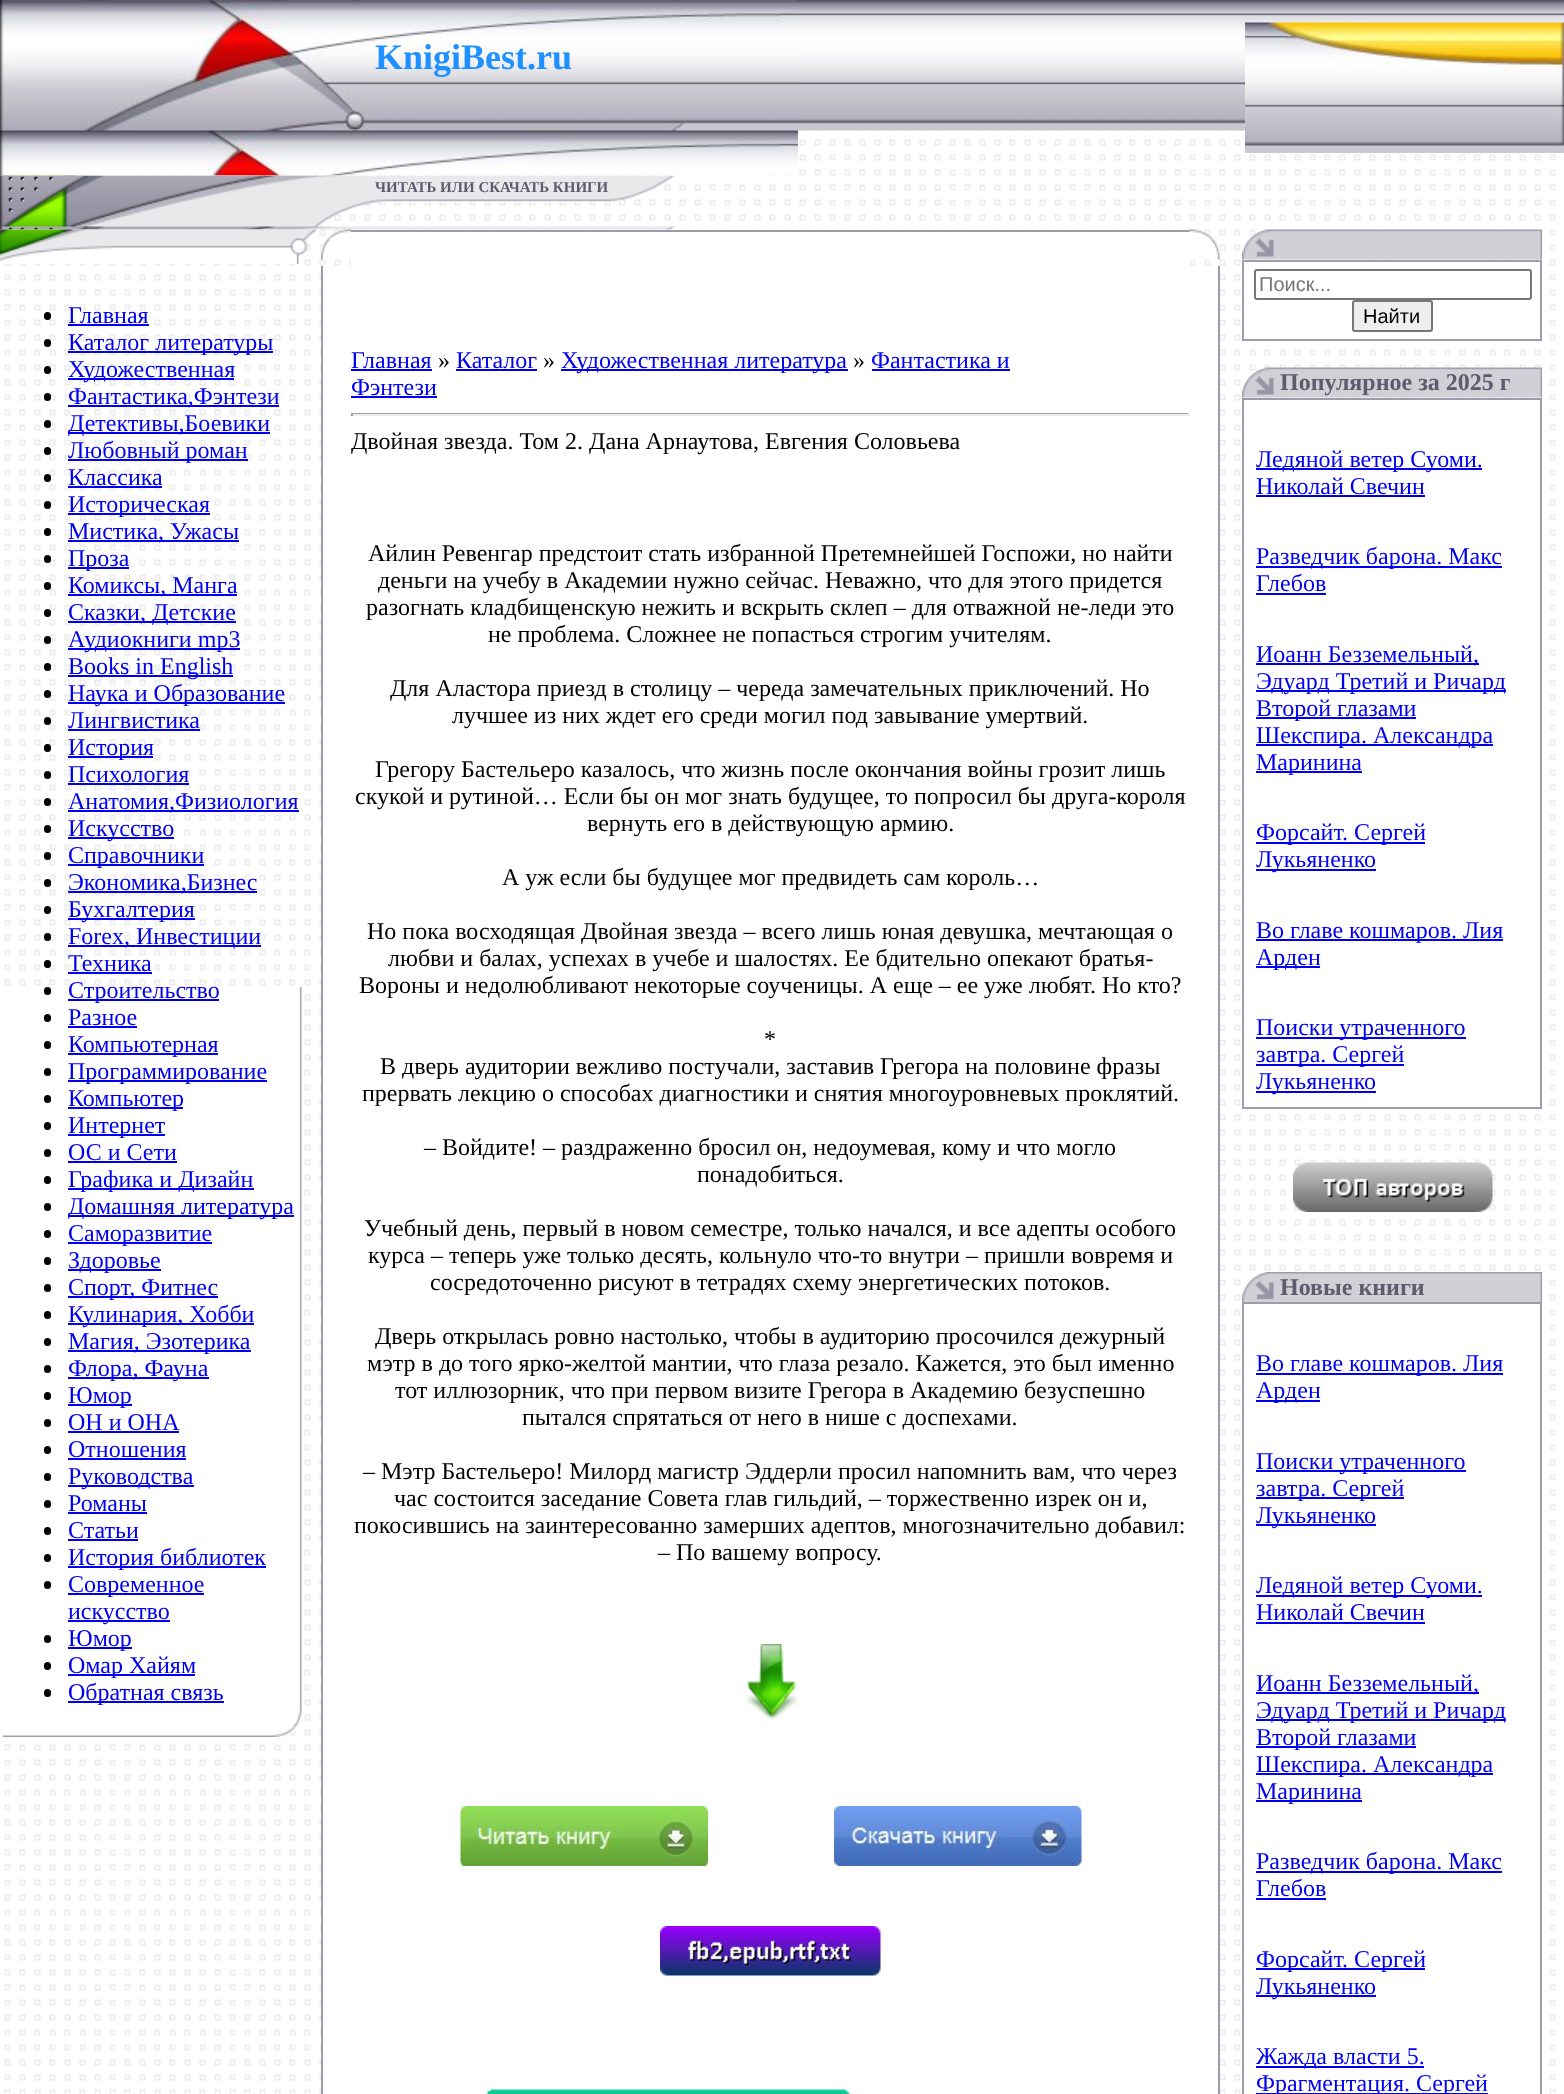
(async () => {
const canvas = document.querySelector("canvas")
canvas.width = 1564
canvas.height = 2094
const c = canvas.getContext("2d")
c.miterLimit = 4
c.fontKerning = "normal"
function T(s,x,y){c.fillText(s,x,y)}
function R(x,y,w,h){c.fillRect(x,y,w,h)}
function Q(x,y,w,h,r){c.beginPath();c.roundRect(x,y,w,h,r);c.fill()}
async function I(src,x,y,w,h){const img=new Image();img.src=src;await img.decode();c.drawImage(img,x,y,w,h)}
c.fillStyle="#fff"
R(0,0,1564,2094)
await I("1.png",4,130,1552,1964)
await I("2.png",798,0,766,131)
await I("3.png",0,0,375,176)
await I("4.png",375,0,423,176)
c.font="bold 36px Liberation Serif"
c.fillStyle="#1e90ff"
T("KnigiBest.ru",375,69)
await I("5.png",1245,22,319,131)
await I("6.png",0,175,375,55)
await I("7.png",375,175,300,55)
c.font="bold 15px Liberation Serif"
c.fillStyle="#5d5b6c"
T("ЧИТАТЬ ИЛИ СКАЧАТЬ КНИГИ",375,192)
await I("8.png",0,229,317,35)
await I("9.png",3,987,299,750)
c.fillStyle="#000"
Q(44,312,7,8,3.5)
c.font="24px Liberation Serif"
c.fillStyle="#00e"
T("Главная",68,323)
R(68,324,81,2)
c.fillStyle="#000"
Q(44,339,7,8,3.5)
c.fillStyle="#00e"
R(68,351,205,2)
T("Каталог литературы",68,350)
c.fillStyle="#000"
Q(44,366,7,8,3.5)
c.fillStyle="#00e"
R(68,378,166,2)
T("Художественная",68,377)
c.fillStyle="#000"
Q(44,393,7,8,3.5)
c.fillStyle="#00e"
R(68,405,211,2)
T("Фантастика,Фэнтези",68,404)
c.fillStyle="#000"
Q(44,420,7,8,3.5)
c.fillStyle="#00e"
R(68,432,202,2)
T("Детективы,Боевики",68,431)
c.fillStyle="#000"
Q(44,447,7,8,3.5)
c.fillStyle="#00e"
R(68,459,180,2)
T("Любовный роман",68,458)
c.fillStyle="#000"
Q(44,474,7,8,3.5)
c.fillStyle="#00e"
T("Классика",68,485)
R(68,486,94,2)
c.fillStyle="#000"
Q(44,501,7,8,3.5)
c.fillStyle="#00e"
R(68,513,142,2)
T("Историческая",68,512)
c.fillStyle="#000"
Q(44,528,7,8,3.5)
c.fillStyle="#00e"
R(68,540,171,2)
T("Мистика, Ужасы",68,539)
c.fillStyle="#000"
Q(44,555,7,8,3.5)
c.fillStyle="#00e"
R(68,567,61,2)
T("Проза",68,566)
c.fillStyle="#000"
Q(44,582,7,8,3.5)
c.fillStyle="#00e"
R(68,594,169,2)
T("Комиксы, Манга",68,593)
c.fillStyle="#000"
Q(44,609,7,8,3.5)
c.fillStyle="#00e"
R(68,621,168,2)
T("Сказки, Детские",68,620)
c.fillStyle="#000"
Q(44,636,7,8,3.5)
c.fillStyle="#00e"
R(68,648,172,2)
T("Аудиокниги mp3",68,647)
c.fillStyle="#000"
Q(44,663,7,8,3.5)
c.fillStyle="#00e"
R(68,675,165,2)
T("Books in English",68,674)
c.fillStyle="#000"
Q(44,690,7,8,3.5)
c.fillStyle="#00e"
R(68,702,217,2)
T("Наука и Образование",68,701)
c.fillStyle="#000"
Q(44,717,7,8,3.5)
c.fillStyle="#00e"
T("Лингвистика",68,728)
R(68,729,132,2)
c.fillStyle="#000"
Q(44,744,7,8,3.5)
c.fillStyle="#00e"
R(68,756,85,2)
T("История",68,755)
c.fillStyle="#000"
Q(44,771,7,8,3.5)
c.fillStyle="#00e"
T("Психология",68,782)
R(68,783,121,2)
c.fillStyle="#000"
Q(44,798,7,8,3.5)
c.fillStyle="#00e"
R(68,810,231,2)
T("Анатомия,Физиология",68,809)
c.fillStyle="#000"
Q(44,825,7,8,3.5)
c.fillStyle="#00e"
R(68,837,106,2)
T("Искусство",68,836)
c.fillStyle="#000"
Q(44,852,7,8,3.5)
c.fillStyle="#00e"
R(68,864,136,2)
T("Справочники",68,863)
c.fillStyle="#000"
Q(44,879,7,8,3.5)
c.fillStyle="#00e"
R(68,891,189,2)
T("Экономика,Бизнес",68,890)
c.fillStyle="#000"
Q(44,906,7,8,3.5)
c.fillStyle="#00e"
R(68,918,127,2)
T("Бухгалтерия",68,917)
c.fillStyle="#000"
Q(44,933,7,8,3.5)
c.fillStyle="#00e"
R(68,945,193,2)
T("Forex, Инвестиции",68,944)
c.fillStyle="#000"
Q(44,960,7,8,3.5)
c.fillStyle="#00e"
T("Техника",68,971)
R(68,972,84,2)
c.fillStyle="#000"
Q(44,987,7,8,3.5)
c.fillStyle="#00e"
R(68,999,151,2)
T("Строительство",68,998)
c.fillStyle="#000"
Q(44,1014,7,8,3.5)
c.fillStyle="#00e"
T("Разное",68,1025)
R(68,1026,69,2)
c.fillStyle="#000"
Q(44,1041,7,8,3.5)
c.fillStyle="#00e"
R(68,1053,150,2)
T("Компьютерная",68,1052)
c.fillStyle="#000"
Q(44,1068,7,8,3.5)
c.fillStyle="#00e"
R(68,1080,199,2)
T("Программирование",68,1079)
c.fillStyle="#000"
Q(44,1095,7,8,3.5)
c.fillStyle="#00e"
R(68,1107,115,2)
T("Компьютер",68,1106)
c.fillStyle="#000"
Q(44,1122,7,8,3.5)
c.fillStyle="#00e"
R(68,1134,97,2)
T("Интернет",68,1133)
c.fillStyle="#000"
Q(44,1149,7,8,3.5)
c.fillStyle="#00e"
T("ОС и Сети",68,1160)
R(68,1161,109,2)
c.fillStyle="#000"
Q(44,1176,7,8,3.5)
c.fillStyle="#00e"
R(68,1188,186,2)
T("Графика и Дизайн",68,1187)
c.fillStyle="#000"
Q(44,1203,7,8,3.5)
c.fillStyle="#00e"
R(68,1215,226,2)
T("Домашняя литература",68,1214)
c.fillStyle="#000"
Q(44,1230,7,8,3.5)
c.fillStyle="#00e"
R(68,1242,144,2)
T("Саморазвитие",68,1241)
c.fillStyle="#000"
Q(44,1257,7,8,3.5)
c.fillStyle="#00e"
R(68,1269,93,2)
T("Здоровье",68,1268)
c.fillStyle="#000"
Q(44,1284,7,8,3.5)
c.fillStyle="#00e"
R(68,1296,150,2)
T("Спорт, Фитнес",68,1295)
c.fillStyle="#000"
Q(44,1311,7,8,3.5)
c.fillStyle="#00e"
R(68,1323,186,2)
T("Кулинария, Хобби",68,1322)
c.fillStyle="#000"
Q(44,1338,7,8,3.5)
c.fillStyle="#00e"
R(68,1350,183,2)
T("Магия, Эзотерика",68,1349)
c.fillStyle="#000"
Q(44,1365,7,8,3.5)
c.fillStyle="#00e"
R(68,1377,141,2)
T("Флора, Фауна",68,1376)
c.fillStyle="#000"
Q(44,1392,7,8,3.5)
c.fillStyle="#00e"
R(68,1404,64,2)
T("Юмор",68,1403)
c.fillStyle="#000"
Q(44,1419,7,8,3.5)
c.fillStyle="#00e"
T("ОН и ОНА",68,1430)
R(68,1431,111,2)
c.fillStyle="#000"
Q(44,1446,7,8,3.5)
c.fillStyle="#00e"
T("Отношения",68,1457)
R(68,1458,118,2)
c.fillStyle="#000"
Q(44,1473,7,8,3.5)
c.fillStyle="#00e"
R(68,1485,126,2)
T("Руководства",68,1484)
c.fillStyle="#000"
Q(44,1500,7,8,3.5)
c.fillStyle="#00e"
T("Романы",68,1511)
R(68,1512,79,2)
c.fillStyle="#000"
Q(44,1527,7,8,3.5)
c.fillStyle="#00e"
T("Статьи",68,1538)
R(68,1539,70,2)
c.fillStyle="#000"
Q(44,1554,7,8,3.5)
c.fillStyle="#00e"
R(68,1566,198,2)
T("История библиотек",68,1565)
c.fillStyle="#000"
Q(44,1581,7,8,3.5)
c.fillStyle="#00e"
R(68,1593,136,2)
T("Современное",68,1592)
R(68,1620,102,2)
T("искусство",68,1619)
c.fillStyle="#000"
Q(44,1635,7,8,3.5)
c.fillStyle="#00e"
R(68,1647,64,2)
T("Юмор",68,1646)
c.fillStyle="#000"
Q(44,1662,7,8,3.5)
c.fillStyle="#00e"
R(68,1674,127,2)
T("Омар Хайям",68,1673)
c.fillStyle="#000"
Q(44,1689,7,8,3.5)
c.fillStyle="#00e"
R(68,1701,156,2)
T("Обратная связь",68,1700)
await I("10.png",321,229,30,31)
c.fillStyle="#fff"
R(351,232,839,34)
c.fillStyle="#9d9cad"
R(351,230,839,2)
await I("11.png",1189,229,31,31)
c.fillStyle="#fff"
R(323,274,888,1820)
c.fillStyle="#9d9cad"
R(321,266,2,1828)
R(1218,266,2,1828)
c.fillStyle="#00e"
T("Главная",351,368)
R(351,369,81,2)
c.fillStyle="#000"
T("»",438,368)
c.fillStyle="#00e"
T("Каталог",456,368)
R(456,369,81,2)
c.fillStyle="#000"
T("»",543,368)
c.fillStyle="#00e"
R(561,369,287,2)
T("Художественная литература",561,368)
c.fillStyle="#000"
T("»",853,368)
c.fillStyle="#00e"
T("Фантастика и",871,368)
R(872,369,138,2)
T("Фэнтези",351,395)
R(351,396,86,2)
c.fillStyle="#9f9f9f"
R(351,413,839,1)
c.fillStyle="#eee"
R(1188,413,2,3)
R(351,414,839,2)
c.fillStyle="#9f9f9f"
R(351,413,2,3)
c.fillStyle="#000"
T("Двойная звезда. Том 2. Дана Арнаутова, Евгения Соловьева",351,449)
T("Айлин Ревенгар предстоит стать избранной Претемнейшей Госпожи, но найти",368,561)
T("деньги на учебу в Академии нужно сейчас. Неважно, что для этого придется",378,588)
T("разогнать кладбищенскую нежить и вскрыть склеп – для отважной не-леди это",366,615)
T("не проблема. Сложнее не попасться строгим учителям.",488,642)
T("Для Аластора приезд в столицу – череда замечательных приключений. Но",390,696)
T("лучшее из них ждет его среди могил под завывание умертвий.",452,723)
T("Грегору Бастельеро казалось, что жизнь после окончания войны грозит лишь",375,777)
T("скукой и рутиной… Если бы он мог знать будущее, то попросил бы друга-короля",355,804)
T("вернуть его в действующую армию.",587,831)
T("А уж если бы будущее мог предвидеть сам король…",502,885)
T("Но пока восходящая Двойная звезда – всего лишь юная девушка, мечтающая о",367,939)
T("любви и балах, успехах в учебе и шалостях. Ее бдительно опекают братья-",388,966)
T("Вороны и недолюбливают некоторые соученицы. А еще – ее уже любят. Но кто?",359,993)
T("*",764,1047)
T("В дверь аудитории вежливо постучали, заставив Грегора на половине фразы",380,1074)
T("прервать лекцию о способах диагностики и снятия многоуровневых проклятий.",362,1101)
T("– Войдите! – раздраженно бросил он, недоумевая, кому и что могло",424,1155)
T("понадобиться.",697,1182)
T("Учебный день, первый в новом семестре, только начался, и все адепты особого",364,1236)
T("курса – теперь уже только десять, кольнуло что-то внутри – пришли вовремя и",368,1263)
T("сосредоточенно рисуют в тетрадях схему энергетических потоков.",430,1290)
T("Дверь открылась ровно настолько, чтобы в аудиторию просочился дежурный",375,1344)
T("мэтр в до того ярко-желтой мантии, что глаза резало. Кажется, это был именно",367,1371)
T("тот иллюзорник, что при первом визите Грегора в Академию безуспешно",395,1398)
T("пытался спрятаться от него в нише с доспехами.",522,1425)
T("– Мэтр Бастельеро! Милорд магистр Эддерли просил напомнить вам, что через",363,1479)
T("час состоится заседание Совета глав гильдий, – торжественно изрек он и,",394,1506)
T("покосившись на заинтересованно замерших адептов, многозначительно добавил:",354,1533)
T("– По вашему вопросу.",658,1560)
await I("12.png",746,1644,52,75)
await I("13.png",460,1806,248,60)
await I("14.png",834,1806,248,60)
await I("15.png",660,1926,221,50)
await I("16.png",486,2089,365,5)
await I("17.png",1242,229,300,31)
c.fillStyle="#fff"
R(1249,262,291,77)
c.strokeStyle="#9d9cad"
c.lineWidth=2
c.strokeRect(1243,261,298,79)
c.beginPath()
c.roundRect(1255,270,276,29,2)
c.strokeStyle="#767676"
c.stroke()
c.font="20px Liberation Sans"
c.fillStyle="#757575"
T("Поиск...",1259,291)
c.fillStyle="#efefef"
c.beginPath()
c.roundRect(1353,301,79,30,2)
c.fill()
c.stroke()
c.fillStyle="#000"
T("Найти",1363,323)
await I("18.png",1242,367,300,31)
c.font="bold 24px Liberation Serif"
c.fillStyle="#5d5b6c"
T("Популярное за 2025 г",1280,390)
c.fillStyle="#fff"
R(1249,400,291,706)
c.strokeStyle="#9d9cad"
c.strokeRect(1243,399,298,709)
c.fillStyle="#00e"
R(1256,468,226,2)
c.font="24px Liberation Serif"
T("Ледяной ветер Суоми.",1256,467)
T("Николай Свечин",1256,494)
R(1256,495,169,2)
R(1256,566,246,2)
T("Разведчик барона. Макс",1256,564)
T("Глебов",1256,591)
R(1256,593,70,2)
R(1256,663,223,2)
T("Иоанн Безземельный,",1256,662)
R(1256,690,250,2)
T("Эдуард Третий и Ричард",1256,689)
R(1256,717,160,2)
T("Второй глазами",1256,716)
R(1256,744,237,2)
T("Шекспира. Александра",1256,743)
R(1256,771,106,2)
T("Маринина",1256,770)
R(1256,842,169,2)
T("Форсайт. Сергей",1256,840)
R(1256,869,120,2)
T("Лукьяненко",1256,867)
R(1256,939,247,2)
T("Во главе кошмаров. Лия",1256,938)
R(1256,966,64,2)
T("Арден",1256,965)
R(1256,1037,210,2)
T("Поиски утраченного",1256,1035)
R(1256,1064,148,2)
T("завтра. Сергей",1256,1062)
R(1256,1091,120,2)
T("Лукьяненко",1256,1089)
await I("19.png",1293,1162,200,50)
await I("20.png",1242,1272,300,30)
c.font="bold 24px Liberation Serif"
c.fillStyle="#5d5b6c"
T("Новые книги",1280,1295)
c.fillStyle="#fff"
R(1249,1309,291,785)
c.strokeRect(1243,1303,298,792)
c.fillStyle="#00e"
R(1256,1373,247,2)
c.font="24px Liberation Serif"
T("Во главе кошмаров. Лия",1256,1371)
R(1256,1400,64,2)
T("Арден",1256,1398)
R(1256,1470,210,2)
T("Поиски утраченного",1256,1469)
R(1256,1497,148,2)
T("завтра. Сергей",1256,1496)
R(1256,1524,120,2)
T("Лукьяненко",1256,1523)
R(1256,1595,226,2)
T("Ледяной ветер Суоми.",1256,1593)
T("Николай Свечин",1256,1620)
R(1256,1622,169,2)
R(1256,1692,223,2)
T("Иоанн Безземельный,",1256,1691)
R(1256,1719,250,2)
T("Эдуард Третий и Ричард",1256,1718)
R(1256,1746,160,2)
T("Второй глазами",1256,1745)
R(1256,1773,237,2)
T("Шекспира. Александра",1256,1772)
R(1256,1800,106,2)
T("Маринина",1256,1799)
R(1256,1871,246,2)
T("Разведчик барона. Макс",1256,1869)
T("Глебов",1256,1896)
R(1256,1898,70,2)
R(1256,1968,169,2)
T("Форсайт. Сергей",1256,1967)
R(1256,1995,120,2)
T("Лукьяненко",1256,1994)
R(1256,2066,168,2)
T("Жажда власти 5.",1256,2064)
R(1256,2093,232,1)
T("Фрагментация. Сергей",1256,2091)
})()
